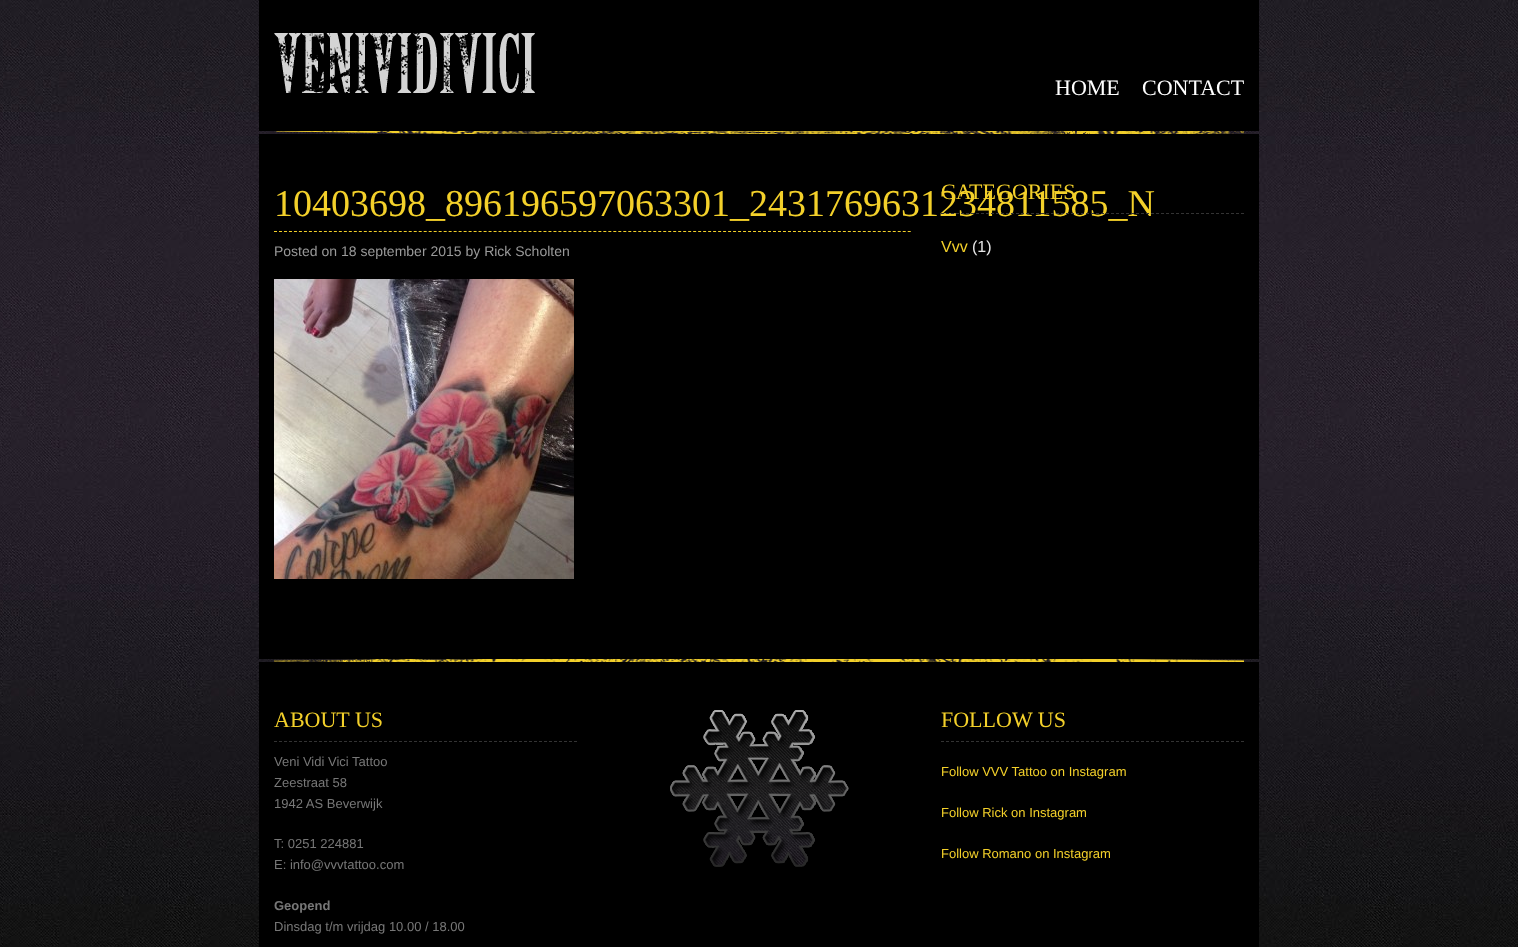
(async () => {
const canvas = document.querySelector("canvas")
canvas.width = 1518
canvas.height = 947
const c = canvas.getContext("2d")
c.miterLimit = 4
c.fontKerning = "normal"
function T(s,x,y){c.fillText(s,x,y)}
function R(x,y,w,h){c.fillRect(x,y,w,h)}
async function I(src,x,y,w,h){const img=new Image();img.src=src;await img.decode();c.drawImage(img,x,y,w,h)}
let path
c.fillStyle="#fff"
R(0,0,1518,947)
await I("1.png",0,0,1518,947)
c.fillStyle="#000"
R(259,0,1000,131)
await I("2.png",274,33,261,60)
c.font="22px Liberation Serif"
c.fillStyle="#fff"
T("HOME",1055,95)
T("CONTACT",1142,95)
await I("3.png",274,131,970,3)
c.fillStyle="#000"
R(259,134,1000,525)
c.font="38px Liberation Serif"
c.fillStyle="#f3d02a"
T("10403698_896196597063301_2431769631234811585_N",274,216)
path = new Path2D("M941 213.5h303")
c.strokeStyle="#333"
c.setLineDash([3,2])
c.stroke(path)
c.font="22px Liberation Serif"
T("CATEGORIES",941,199)
c.font="16px Liberation Sans"
T("Vvv",941,252)
c.fillStyle="#e6e6e6"
T("(1)",972,252)
path = new Path2D("M274 231.5h637")
c.strokeStyle="#f3d02a"
c.setLineDash([3,1.99])
c.stroke(path)
c.font="14px Liberation Sans"
c.fillStyle="#999"
T("Posted on 18 september 2015 by Rick Scholten",274,256)
await I("4.png",274,279,300,300)
await I("5.png",274,659,970,3)
c.fillStyle="#000"
R(259,662,1000,285)
path = new Path2D("M274 741.5h303")
c.strokeStyle="#333"
c.setLineDash([3,2])
c.stroke(path)
c.font="22px Liberation Serif"
c.fillStyle="#f3d02a"
T("ABOUT US",274,727)
c.font="13px Liberation Sans"
c.fillStyle="#777"
T("Veni Vidi Vici Tattoo",274,766)
T("Zeestraat 58",274,787)
T("1942 AS Beverwijk",274,808)
T("T: 0251 224881",274,848)
T("E: info@vvvtattoo.com",274,869)
c.font="bold 13px Liberation Sans"
T("Geopend",274,910)
c.font="13px Liberation Sans"
T("Dinsdag t/m vrijdag 10.00 / 18.00",274,931)
await I("6.png",670,710,179,157)
await I("7.png",670,710,179,147)
path = new Path2D("M941 741.5h303")
c.stroke(path)
c.font="22px Liberation Serif"
c.fillStyle="#f3d02a"
T("FOLLOW US",941,727)
c.font="13px Liberation Sans"
T("Follow VVV Tattoo on Instagram",941,776)
T("Follow Rick on Instagram",941,817)
T("Follow Romano on Instagram",941,858)
})()
